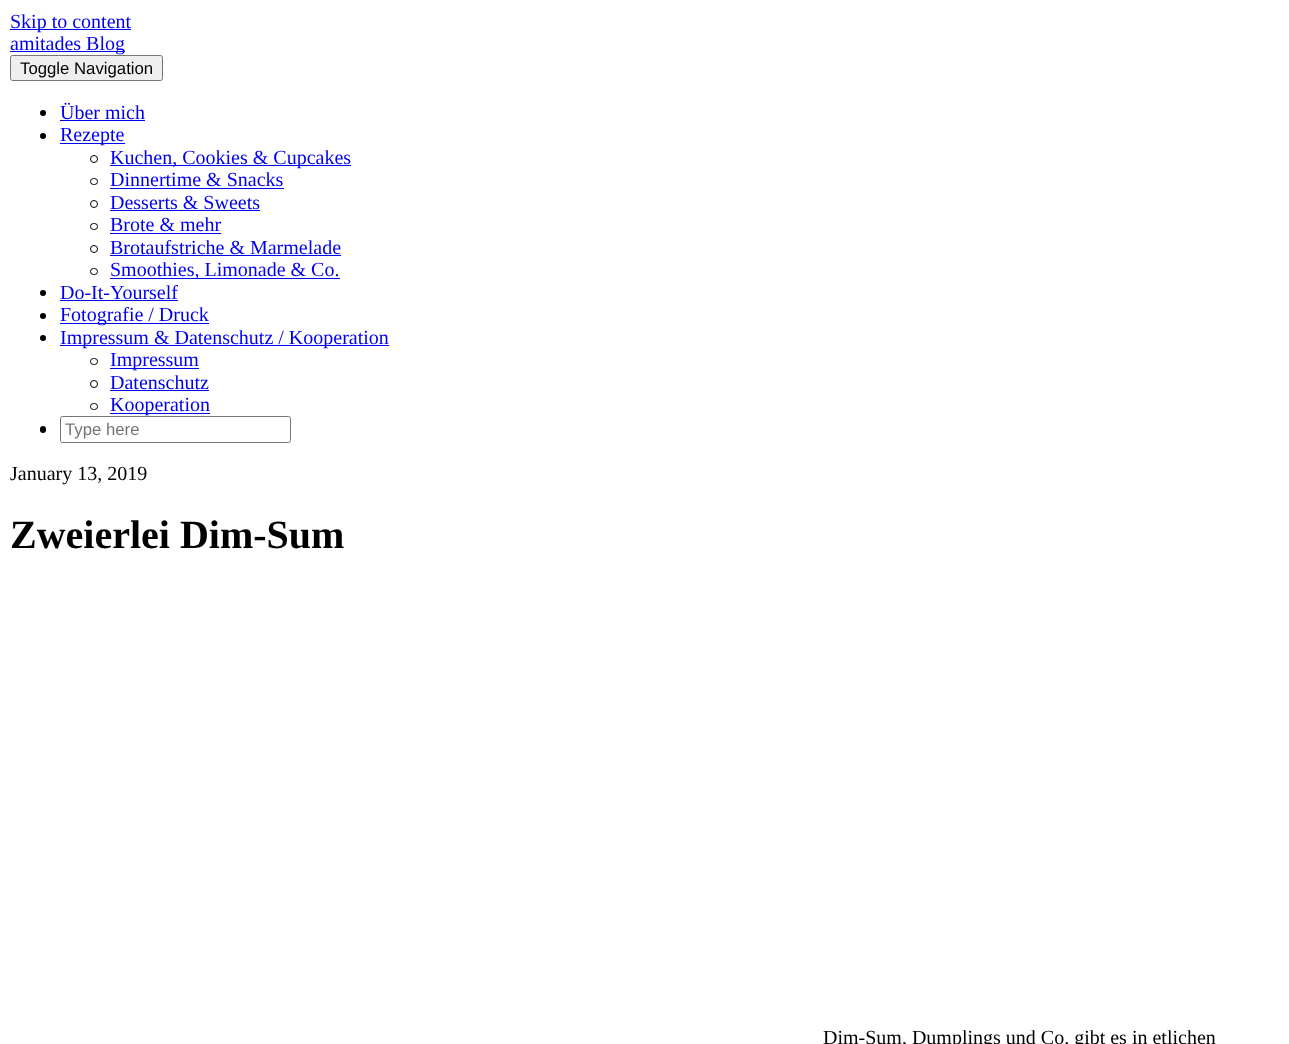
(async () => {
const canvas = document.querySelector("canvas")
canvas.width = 1289
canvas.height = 1044
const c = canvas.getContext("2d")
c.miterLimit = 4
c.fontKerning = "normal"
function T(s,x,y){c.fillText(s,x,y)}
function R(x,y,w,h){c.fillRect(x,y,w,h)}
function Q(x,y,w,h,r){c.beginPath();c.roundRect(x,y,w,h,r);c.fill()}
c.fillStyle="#fff"
R(0,0,1289,1044)
c.fillStyle="#00e"
R(10,29,121,1)
c.font="20px Liberation Serif"
T("Skip to content",10,28)
R(10,51,115,1)
T("amitades Blog",10,50)
c.fillStyle="#efefef"
c.beginPath()
c.roundRect(10.5,55.5,152,25,2)
c.fill()
c.strokeStyle="#767676"
c.stroke()
c.font="16.75px Liberation Sans"
c.fillStyle="#000"
T("Toggle Navigation",20,74)
c.beginPath()
c.arc(43,113,3,0,7)
c.fill()
c.font="20px Liberation Serif"
c.fillStyle="#00e"
T("Über mich",60,119)
R(60,120,85,1)
c.fillStyle="#000"
c.beginPath()
c.arc(43,136,3,0,7)
c.fill()
c.fillStyle="#00e"
R(60,143,65,1)
T("Rezepte",60,141)
c.beginPath()
c.arc(94,159,3.5,0,7)
c.strokeStyle="#000"
c.stroke()
R(110,165,241,1)
T("Kuchen, Cookies & Cupcakes",110,164)
c.beginPath()
c.roundRect(90.5,178.5,7,6,3)
c.stroke()
T("Dinnertime & Snacks",110,186)
R(110,188,174,1)
c.beginPath()
c.arc(94,204,3.5,0,7)
c.stroke()
T("Desserts & Sweets",110,209)
R(110,210,150,1)
c.beginPath()
c.roundRect(90.5,223.5,7,6,3)
c.stroke()
T("Brote & mehr",110,231)
R(110,233,111,1)
c.beginPath()
c.arc(94,249,3.5,0,7)
c.stroke()
T("Brotaufstriche & Marmelade",110,254)
R(110,255,231,1)
c.beginPath()
c.roundRect(90.5,268.5,7,6,3)
c.stroke()
R(110,278,230,1)
T("Smoothies, Limonade & Co.",110,276)
c.fillStyle="#000"
c.beginPath()
c.arc(43,293,3,0,7)
c.fill()
c.fillStyle="#00e"
T("Do-It-Yourself",60,299)
R(60,300,118,1)
c.fillStyle="#000"
c.beginPath()
c.arc(43,316,3,0,7)
c.fill()
c.fillStyle="#00e"
R(60,323,149,1)
T("Fotografie / Druck",60,321)
c.fillStyle="#000"
c.beginPath()
c.arc(43,338,3,0,7)
c.fill()
c.fillStyle="#00e"
R(60,345,329,1)
T("Impressum & Datenschutz / Kooperation",60,344)
c.beginPath()
c.roundRect(90.5,358.5,7,6,3)
c.stroke()
R(110,368,89,1)
T("Impressum",110,366)
c.beginPath()
c.arc(94,384,3.5,0,7)
c.stroke()
T("Datenschutz",110,389)
R(110,390,99,1)
c.beginPath()
c.roundRect(90.5,403.5,7,6,3)
c.stroke()
R(110,413,100,1)
T("Kooperation",110,411)
c.fillStyle="#000"
Q(40,426,6,7,3)
c.beginPath()
c.roundRect(60.5,416.5,230,26,2)
c.strokeStyle="#767676"
c.stroke()
c.font="16.75px Liberation Sans"
c.fillStyle="#757575"
T("Type here",65,435)
c.font="20px Liberation Serif"
c.fillStyle="#000"
T("January 13, 2019",10,480)
c.font="bold 40px Liberation Serif"
T("Zweierlei Dim-Sum",10,548)
c.font="20px Liberation Serif"
T("Dim-Sum, Dumplings und Co. gibt es in etlichen",823,1044)
})()
